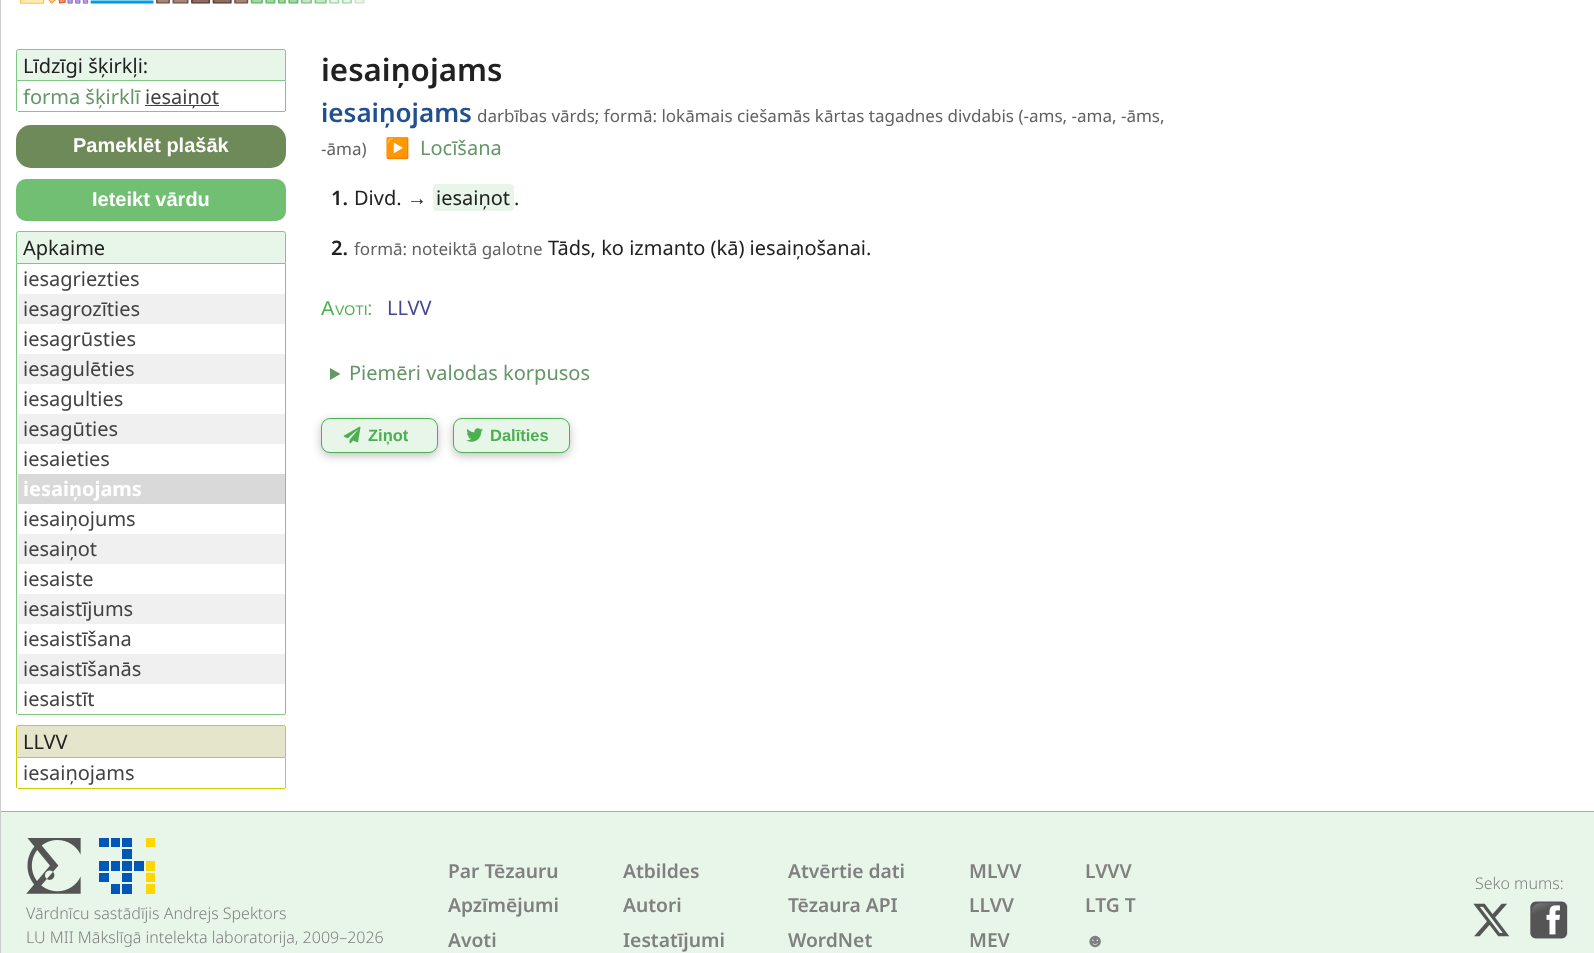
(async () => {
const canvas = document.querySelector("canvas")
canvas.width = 1594
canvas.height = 953
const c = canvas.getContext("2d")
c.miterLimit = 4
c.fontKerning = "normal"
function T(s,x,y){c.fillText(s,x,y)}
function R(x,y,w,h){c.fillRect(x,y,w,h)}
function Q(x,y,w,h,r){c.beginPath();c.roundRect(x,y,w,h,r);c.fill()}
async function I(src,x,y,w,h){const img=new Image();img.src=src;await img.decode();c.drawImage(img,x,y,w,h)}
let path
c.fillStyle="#fff"
R(0,0,1594,953)
c.fillStyle="#ccc"
R(0,0,1,953)
await I("1.png",20,0,345,4)
c.fillStyle="#e8f5e9"
c.beginPath()
c.roundRect(16.5,49.5,269,31,[2,2,0,0])
c.fill()
c.strokeStyle="#81c784"
c.stroke()
c.font="20px Noto Sans"
c.fillStyle="#212121"
T("Līdzīgi šķirkļi:",23,73)
c.fillStyle="#81c784"
R(285,81,1,30)
R(18,111,267,1)
R(16,81,1,30)
c.fillStyle="#649666"
T("forma šķirklī",23,104)
c.fillStyle="#424242"
R(145,105,74,1)
T("iesaiņot",145,104)
c.fillStyle="#6f8a59"
Q(16,125,270,43,15)
c.font="bold 20px Liberation Sans"
c.fillStyle="#fff"
T("Pameklēt plašāk",73,152)
c.fillStyle="#70bf73"
Q(16,179,270,42,10)
c.fillStyle="#fff"
T("Ieteikt vārdu",92,206)
c.fillStyle="#e8f5e9"
c.beginPath()
c.roundRect(16.5,231.5,269,32,[2,2,0,0])
c.fill()
c.stroke()
c.font="20px Noto Sans"
c.fillStyle="#212121"
T("Apkaime",23,255)
c.fillStyle="#81c784"
R(285,264,1,450)
R(18,714,267,1)
R(16,264,1,450)
c.fillStyle="#424242"
T("iesagriezties",23,286)
c.fillStyle="#f0f0f0"
R(18,294,267,30)
c.fillStyle="#424242"
T("iesagrozīties",23,316)
T("iesagrūsties",23,346)
c.fillStyle="#f0f0f0"
R(18,354,267,30)
c.fillStyle="#424242"
T("iesagulēties",23,376)
T("iesagulties",23,406)
c.fillStyle="#f0f0f0"
R(18,414,267,30)
c.fillStyle="#424242"
T("iesagūties",23,436)
T("iesaieties",23,466)
c.fillStyle="#d9d9d9"
R(18,474,267,30)
c.font="bold 20px Noto Sans"
c.fillStyle="#fff"
T("iesaiņojams",23,496)
c.font="20px Noto Sans"
c.fillStyle="#424242"
T("iesaiņojums",23,526)
c.fillStyle="#f0f0f0"
R(18,534,267,30)
c.fillStyle="#424242"
T("iesaiņot",23,556)
T("iesaiste",23,586)
c.fillStyle="#f0f0f0"
R(18,594,267,30)
c.fillStyle="#424242"
T("iesaistījums",23,616)
T("iesaistīšana",23,646)
c.fillStyle="#f0f0f0"
R(18,654,267,30)
c.fillStyle="#424242"
T("iesaistīšanās",23,676)
T("iesaistīt",23,706)
c.fillStyle="#e5e5cc"
c.beginPath()
c.roundRect(16.5,725.5,269,32,[2,2,0,0])
c.fill()
c.strokeStyle="#cc0"
c.stroke()
c.fillStyle="#212121"
T("LLVV",23,749)
c.fillStyle="#cc0"
R(285,758,1,30)
R(18,788,267,1)
R(16,758,1,30)
c.fillStyle="#424242"
T("iesaiņojams",23,780)
c.font="600 31.25px Noto Sans"
c.fillStyle="#212121"
T("iesaiņojams",321,81)
c.font="600 26px Noto Sans"
c.fillStyle="#205090"
T("iesaiņojams",321,122)
c.font="17px Noto Sans"
c.fillStyle="#616161"
T("darbības vārds; formā: lokāmais ciešamās kārtas tagadnes divdabis (-ams, -ama, -āms,",477,122)
T("-āma)",321,155)
c.font="20px Noto Color Emoji"
c.fillStyle="#649666"
T("▶",385,155)
c.font="20px Noto Sans"
T("Locīšana",420,155)
c.font="600 20px Noto Sans"
c.fillStyle="#212121"
T("1.",331,205)
c.font="20px Noto Sans"
T("Divd.",354,205)
c.font="20px Liberation Sans"
T("→",407,205)
c.fillStyle="#e8f5e9"
Q(433,184,81,27,4)
c.font="20px Noto Sans"
c.fillStyle="#212121"
T("iesaiņot",436,205)
T(".",514,205)
c.font="600 20px Noto Sans"
T("2.",331,255)
c.font="17px Noto Sans"
c.fillStyle="#616161"
T("formā: noteiktā galotne",354,255)
c.font="20px Noto Sans"
c.fillStyle="#212121"
T("Tāds, ko izmanto (kā) iesaiņošanai.",548,255)
c.font="20px Liberation Sans"
c.fillStyle="#4caf50"
T("A",321,315)
c.font="14px Liberation Sans"
T("VOTI",335,315)
c.font="20px Liberation Sans"
T(":",367,315)
c.font="20px Noto Sans"
c.fillStyle="#474794"
T("LLVV",387,315)
c.fillStyle="#649666"
path = new Path2D("M330 368l10.5 6l-10.5 6z")
c.fill(path)
T("Piemēri valodas korpusos",349,380)
c.fillStyle="#0000003d"
c.filter="blur(5px)"
c.beginPath()
c.roundRect(321,421,117,35,9)
c.fill()
c.filter="none"
c.fillStyle="#e8f5e9"
c.beginPath()
c.roundRect(321.5,418.5,116,34,8.5)
c.fill()
c.strokeStyle="#4caf50"
c.stroke()
await I("2.png",343,426,18,18)
c.font="bold 16.5px Liberation Sans"
c.fillStyle="#4caf50"
T("Ziņot",368,441)
c.fillStyle="#0000003d"
c.filter="blur(5px)"
c.beginPath()
c.roundRect(453,421,117,35,9)
c.fill()
c.filter="none"
c.fillStyle="#e8f5e9"
c.beginPath()
c.roundRect(453.5,418.5,116,34,8.5)
c.fill()
c.stroke()
await I("3.png",466,428,17,14)
c.fillStyle="#4caf50"
T("Dalīties",490,441)
c.fillStyle="#e8f5e9"
R(1,812,1593,141)
c.fillStyle="#81c784"
R(1,811,1593,1)
c.font="600 19.25px Noto Sans"
c.fillStyle="#808080"
T("Par Tēzauru",448,878)
T("Apzīmējumi",448,912)
T("Avoti",448,947)
T("Atbildes",623,878)
T("Autori",623,912)
T("Iestatījumi",623,947)
T("Atvērtie dati",788,878)
T("Tēzaura API",788,912)
T("WordNet",788,947)
T("MLVV",969,878)
T("LLVV",969,912)
T("MEV",969,947)
T("LVVV",1085,878)
T("LTG T",1085,912)
c.font="bold 19.25px Liberation Sans"
T("☻",1085,947)
c.font="300 16px Noto Sans"
T("Seko mums:",1475,889)
await I("4.png",1473,903,37,34)
await I("5.png",1530,901,38,38)
await I("6.png",26,838,55,56)
await I("7.png",99,838,56,56)
T("Vārdnīcu sastādījis Andrejs Spektors",26,919)
T("LU MII Mākslīgā intelekta laboratorija, 2009–2026",26,943)
})()
